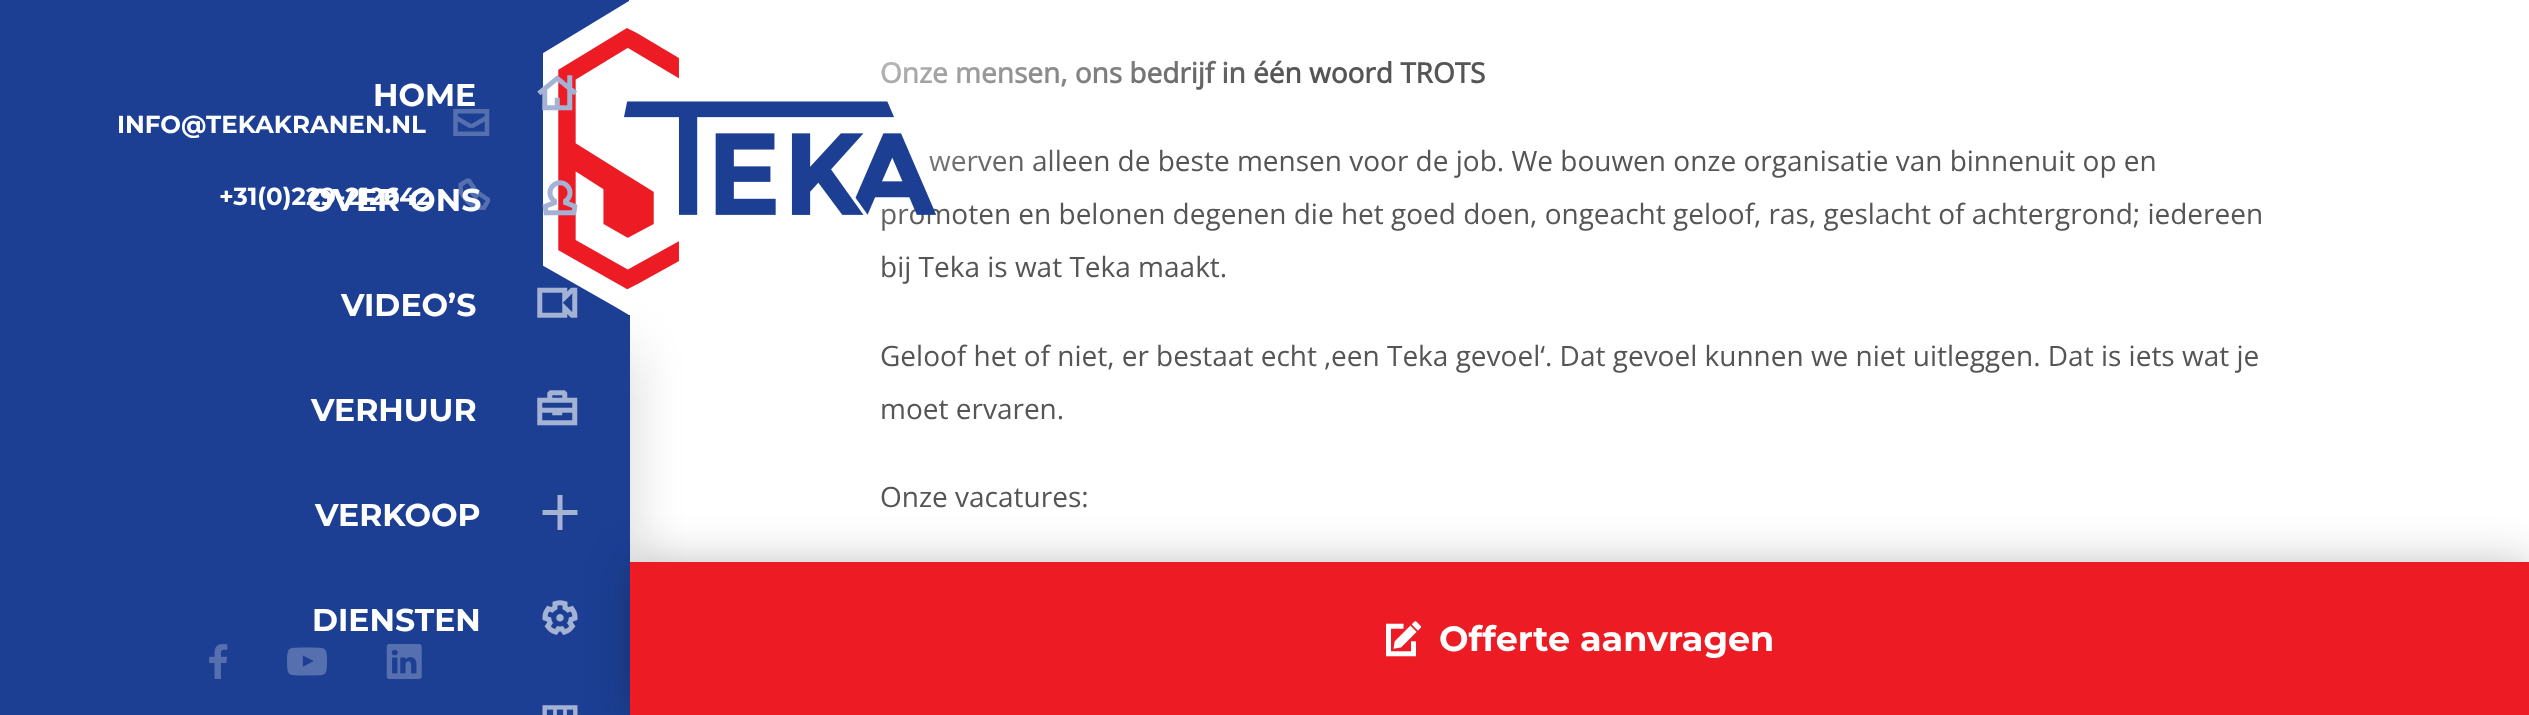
(async () => {
const canvas = document.querySelector("canvas")
canvas.width = 2529
canvas.height = 715
const c = canvas.getContext("2d")
c.miterLimit = 4
c.fontKerning = "normal"
function T(s,x,y){c.fillText(s,x,y)}
function R(x,y,w,h){c.fillRect(x,y,w,h)}
async function I(src,x,y,w,h){const img=new Image();img.src=src;await img.decode();c.drawImage(img,x,y,w,h)}
let gradient, path
c.fillStyle="#fff"
R(0,0,2529,715)
c.fillStyle="#0a0a0a33"
c.filter="blur(26px)"
c.beginPath()
c.rect(595,350,35,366)
c.fill()
c.filter="none"
c.fillStyle="#1c3f94"
R(0,0,543,315)
c.font="100 31.5px Montserrat"
c.fillStyle="#fefefe"
T("HOME",373,106)
c.font="bold 28px Open Sans"
c.fillStyle="#555"
T("Onze mensen, ons bedrijf in één woord TROTS",880,83)
c.font="28px Open Sans"
T("werven alleen de beste mensen voor de job. We bouwen onze organisatie van binnenuit op en",929,171)
T("promoten en belonen degenen die het goed doen, ongeacht geloof, ras, geslacht of achtergrond; iedereen",880,224)
gradient = c.createLinearGradient(1092,481,833,-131)
gradient.addColorStop(.45,"#ffffff00")
gradient.addColorStop(.8,"#ffffffcc")
c.fillStyle = gradient
R(882,61,407,170)
c.fillStyle="#555"
T("bij Teka is wat Teka maakt.",880,277)
await I("7.png",558,28,378,262)
c.fillStyle="#1c3f94"
path = new Path2D("M612 305l-72-41v-209l89-54v-1h-103v315h103z")
c.fill(path)
await I("1.png",537,75,41,36)
c.font="100 24.5px Montserrat"
c.fillStyle="#fefefe"
T("+31(0)229-212642",219,205)
await I("9.png",458,178,32,32)
c.font="100 31.5px Montserrat"
T("OVER ONS",307,211)
await I("2.png",542,180,36,36)
c.fillStyle="#1c3f94"
R(0,315,630,400)
c.fillStyle="#fefefe"
T("VIDEO’S",341,316)
await I("3.png",537,287,41,31)
T("VERHUUR",311,421)
await I("4.png",537,390,41,36)
T("VERKOOP",315,526)
c.fillStyle="#a4b2d4"
path = new Path2D("M577.5 510v5h-15v15h-5v-15h-15v-5h15v-15h5v15z")
c.fill(path)
c.fillStyle="#fefefe"
T("DIENSTEN",312,631)
await I("5.png",542,600,36,35)
await I("6.png",542,705,36,10)
c.font="100 24.5px Montserrat"
T("INFO@TEKAKRANEN.NL",117,133)
await I("8.png",453,109,37,27)
await I("10.png",209,644,19,35)
await I("11.png",287,647,40,29)
await I("12.png",386,644,36,35)
c.font="28px Open Sans"
c.fillStyle="#555"
T("Geloof het of niet, er bestaat echt ‚een Teka gevoel‘. Dat gevoel kunnen we niet uitleggen. Dat is iets wat je",880,366)
T("moet ervaren.",880,419)
T("Onze vacatures:",880,507)
c.fillStyle="#0a0a0a40"
c.filter="blur(22px)"
c.beginPath()
c.rect(630,562,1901,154)
c.fill()
c.filter="none"
c.fillStyle="#ed1c24"
R(630,562,1899,153)
await I("13.png",1386,621,35,36)
c.font="100 35px Montserrat"
c.fillStyle="#fefefe"
T("Offerte aanvragen",1439,651)
})()
